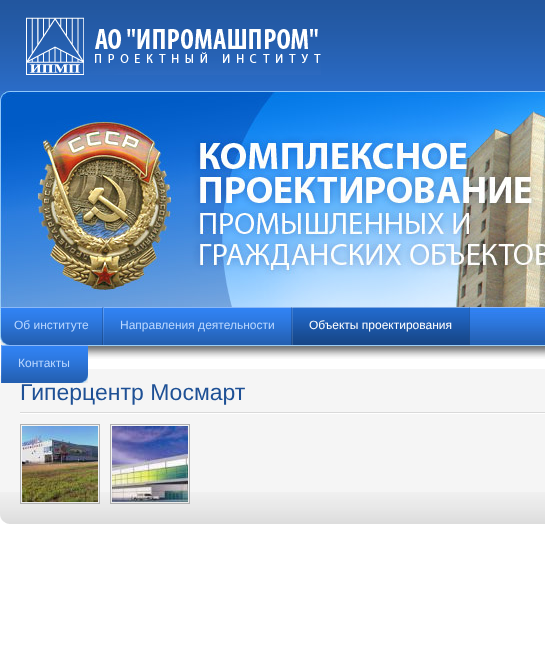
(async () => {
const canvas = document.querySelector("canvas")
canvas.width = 545
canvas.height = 647
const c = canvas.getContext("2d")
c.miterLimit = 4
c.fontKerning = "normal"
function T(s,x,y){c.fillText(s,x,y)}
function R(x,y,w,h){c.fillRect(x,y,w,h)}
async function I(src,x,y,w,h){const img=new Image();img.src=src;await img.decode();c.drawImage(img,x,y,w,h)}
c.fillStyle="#fff"
R(0,0,545,647)
await I("1.png",0,0,545,91)
await I("2.png",26,17,295,58)
await I("3.png",0,91,545,268)
await I("4.png",95,307,8,38)
await I("5.png",1,307,94,38)
c.font="12px Liberation Sans"
c.fillStyle="#bad7ff"
T("Об институте",14,329)
await I("4.png",284,307,8,38)
await I("6.png",103,307,181,38)
T("Направления деятельности",120,329)
await I("7.png",462,307,8,38)
await I("8.png",292,307,170,38)
c.fillStyle="#fff"
T("Объекты проектирования",309,329)
c.fillStyle="#f5f5f5"
R(0,369,545,123)
await I("9.png",80,345,8,38)
await I("10.png",1,345,79,38)
c.fillStyle="#bad7ff"
T("Контакты",18,367)
await I("11.png",0,492,545,32)
await I("12.png",0,369,1,7)
await I("13.png",20,412,525,2)
c.font="23px Liberation Sans"
c.fillStyle="#1e5095"
T("Гиперцентр Мосмарт",20,400)
c.strokeStyle="#b1b1b1"
c.strokeRect(20.5,424.5,79,79)
await I("14.png",22,426,76,76)
c.strokeRect(110.5,424.5,79,79)
await I("15.png",112,426,76,76)
})()
